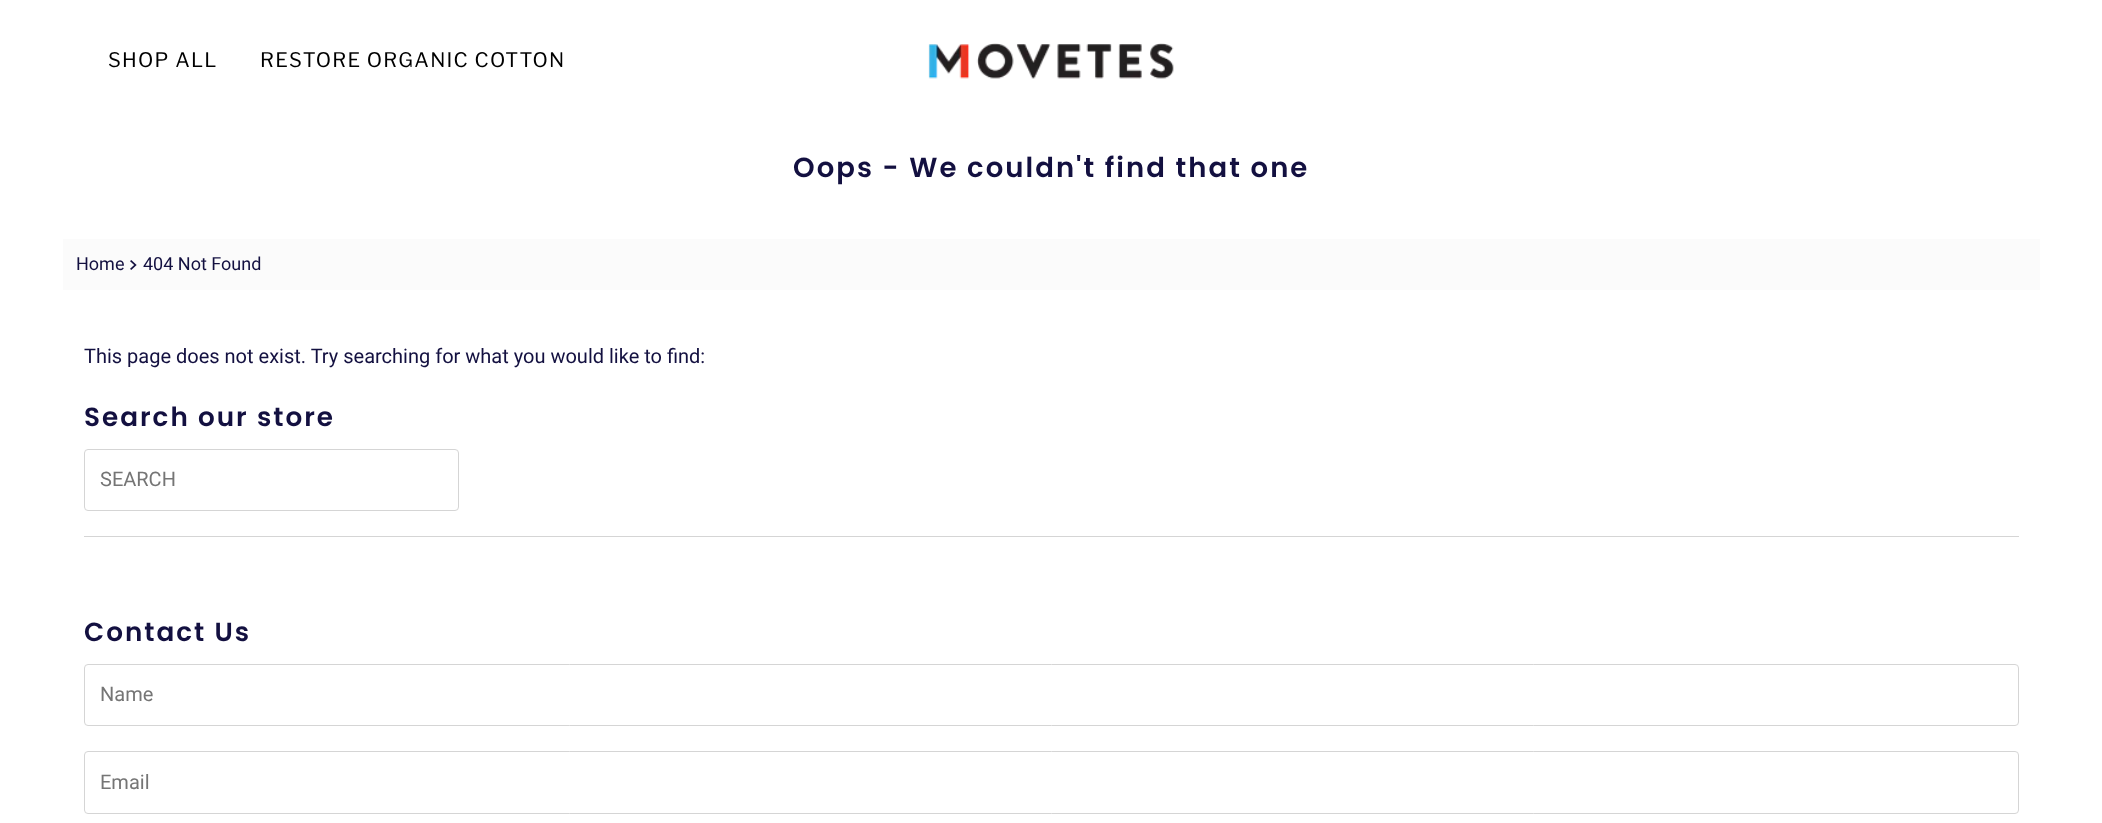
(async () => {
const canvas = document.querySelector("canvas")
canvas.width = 2102
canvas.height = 823
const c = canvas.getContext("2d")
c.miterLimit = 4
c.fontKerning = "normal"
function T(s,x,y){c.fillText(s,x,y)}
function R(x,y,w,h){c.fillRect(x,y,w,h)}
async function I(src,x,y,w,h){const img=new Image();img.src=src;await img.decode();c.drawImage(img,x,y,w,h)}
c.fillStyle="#fff"
R(0,0,2102,823)
c.letterSpacing="1.25px"
c.font="20px Libre Franklin"
c.fillStyle="#000"
T("SHOP ALL",108,67)
T("RESTORE ORGANIC COTTON",260,67)
await I("1.png",928,43,246,36)
c.letterSpacing="2.05px"
c.font="600 27.5px Poppins"
c.fillStyle="#131040"
T("Oops - We couldn't find that one",793,177)
c.fillStyle="#fbfbfb"
R(63,239,1977,51)
c.letterSpacing="0px"
c.font="18px Roboto"
c.fillStyle="#131040"
T("Home",76,270)
await I("2.png",130,260,7,10)
T("404 Not Found",143,270)
c.font="20px Roboto"
T("This page does not exist. Try searching for what you would like to find:",84,363)
c.fillStyle="#d5d5d5"
R(84,536,1935,1)
c.letterSpacing="2px"
c.font="600 26.25px Poppins"
c.fillStyle="#131040"
T("Search our store",84,426)
c.beginPath()
c.roundRect(84.5,449.5,374,61,3.5)
c.strokeStyle="#d5d5d5"
c.stroke()
c.letterSpacing="0px"
c.font="20px Roboto"
c.fillStyle="#757575"
T("SEARCH",100,486)
c.letterSpacing="2px"
c.font="600 26.25px Poppins"
c.fillStyle="#131040"
T("Contact Us",84,641)
c.beginPath()
c.roundRect(84.5,664.5,1934,61,3.5)
c.stroke()
c.letterSpacing="0px"
c.font="20px Roboto"
c.fillStyle="#757575"
T("Name",100,701)
c.beginPath()
c.roundRect(84.5,751.5,1934,62,3.5)
c.stroke()
T("Email",100,789)
})()
